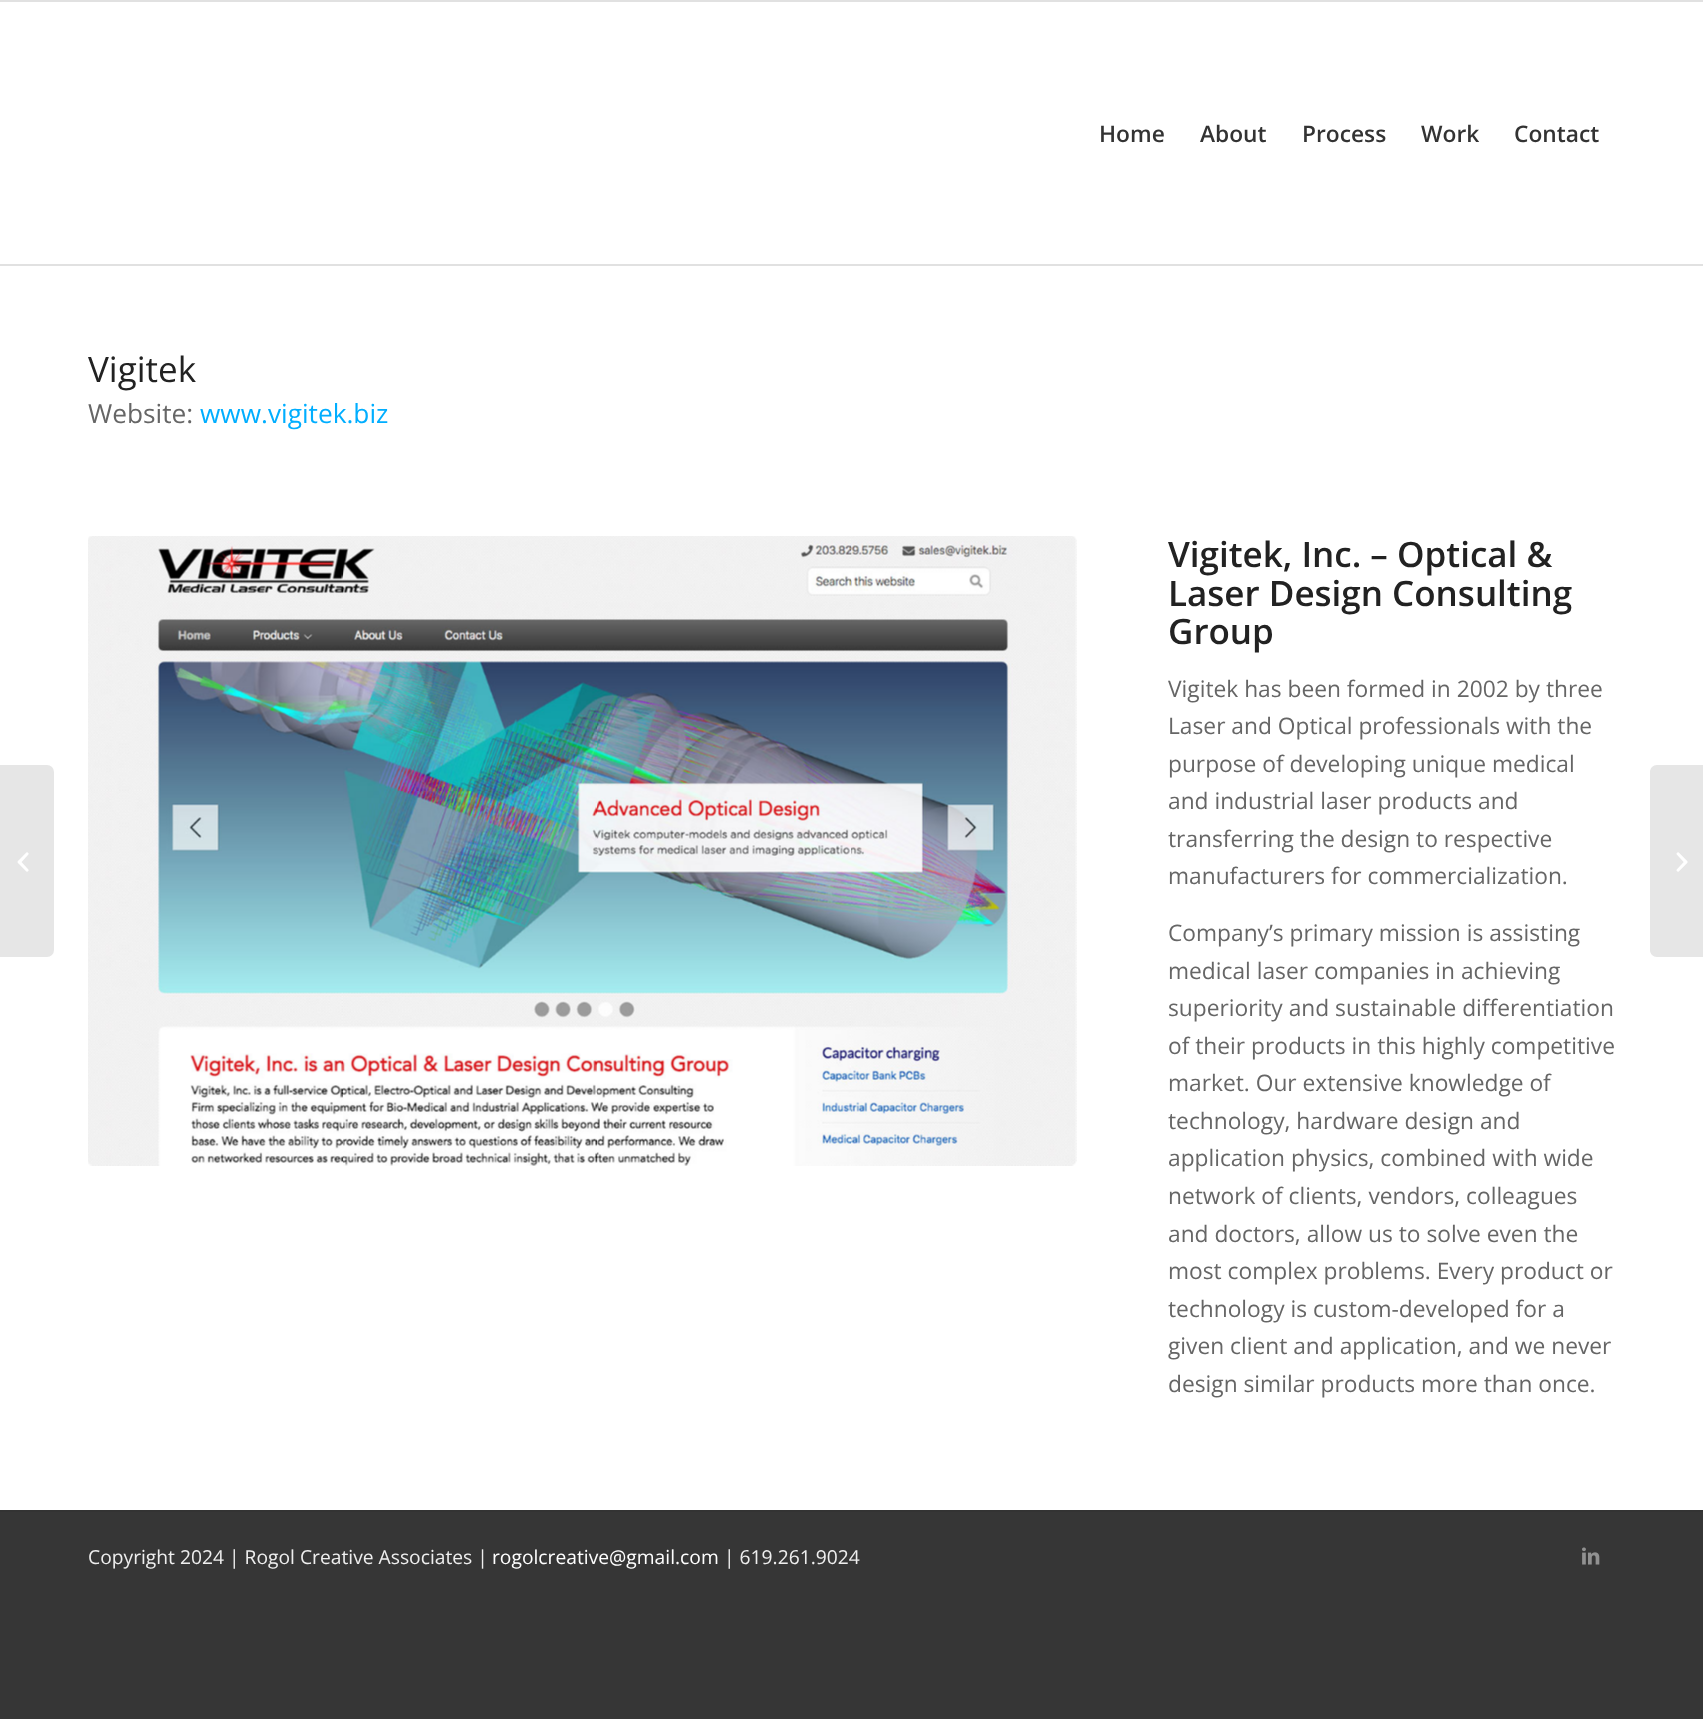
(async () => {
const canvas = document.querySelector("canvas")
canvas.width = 1703
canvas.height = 1719
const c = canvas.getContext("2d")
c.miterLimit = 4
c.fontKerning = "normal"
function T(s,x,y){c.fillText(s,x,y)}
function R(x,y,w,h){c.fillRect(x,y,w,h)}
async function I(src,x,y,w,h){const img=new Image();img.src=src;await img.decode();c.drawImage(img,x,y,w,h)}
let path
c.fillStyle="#363636"
R(0,0,1703,1719)
c.fillStyle="#e1e1e1"
R(0,0,1703,2)
c.fillStyle="#fff"
R(0,2,1703,1508)
c.fillStyle="#e1e1e1"
R(0,264,1703,2)
c.font="600 22.75px Open Sans"
c.fillStyle="#333"
T("Home",1099,142)
T("About",1200,142)
T("Process",1302,142)
T("Work",1421,142)
T("Contact",1514,142)
c.fillStyle="#e6e6e6"
c.beginPath()
c.roundRect(0,765,54,192,[0,7,7,0])
c.fill()
await I("1.png",17,852,12,20)
c.font="35px Open Sans"
c.fillStyle="#222"
T("Vigitek",88,382)
c.font="26.25px Open Sans"
c.fillStyle="#666"
T("Website:",88,423)
c.fillStyle="#00aeff"
T("www.vigitek.biz",200,423)
await I("2.png",88,536,989,630)
c.font="600 35px Open Sans"
c.fillStyle="#222"
T("Vigitek, Inc. – Optical &",1168,567)
T("Laser Design Consulting",1168,606)
T("Group",1168,644)
c.font="22.75px Open Sans"
c.fillStyle="#666"
T("Vigitek has been formed in 2002 by three",1168,697)
T("Laser and Optical professionals with the",1168,734)
T("purpose of developing unique medical",1168,772)
T("and industrial laser products and",1168,809)
T("transferring the design to respective",1168,847)
T("manufacturers for commercialization.",1168,884)
T("Company’s primary mission is assisting",1168,941)
T("medical laser companies in achieving",1168,979)
T("superiority and sustainable differentiation",1168,1016)
T("of their products in this highly competitive",1168,1054)
T("market. Our extensive knowledge of",1168,1091)
T("technology, hardware design and",1168,1129)
T("application physics, combined with wide",1168,1166)
T("network of clients, vendors, colleagues",1168,1204)
T("and doctors, allow us to solve even the",1168,1242)
T("most complex problems. Every product or",1168,1279)
T("technology is custom-developed for a",1168,1317)
T("given client and application, and we never",1168,1354)
T("design similar products more than once.",1168,1392)
c.fillStyle="#333"
R(0,1510,1703,2)
c.font="19.25px Open Sans"
c.fillStyle="#eee"
T("Copyright 2024 | Rogol Creative Associates |",88,1564)
c.fillStyle="#fff"
T("rogolcreative@gmail.com",492,1564)
c.fillStyle="#eee"
T("| 619.261.9024",724,1564)
await I("3.png",1582,1547,18,18)
c.fillStyle="#e6e6e6"
path = new Path2D("M1657 765h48v192h-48c-4 0-7-3-7-7v-178c0-4 3-7 7-7z")
c.fill(path)
await I("4.png",1676,852,12,20)
})()
